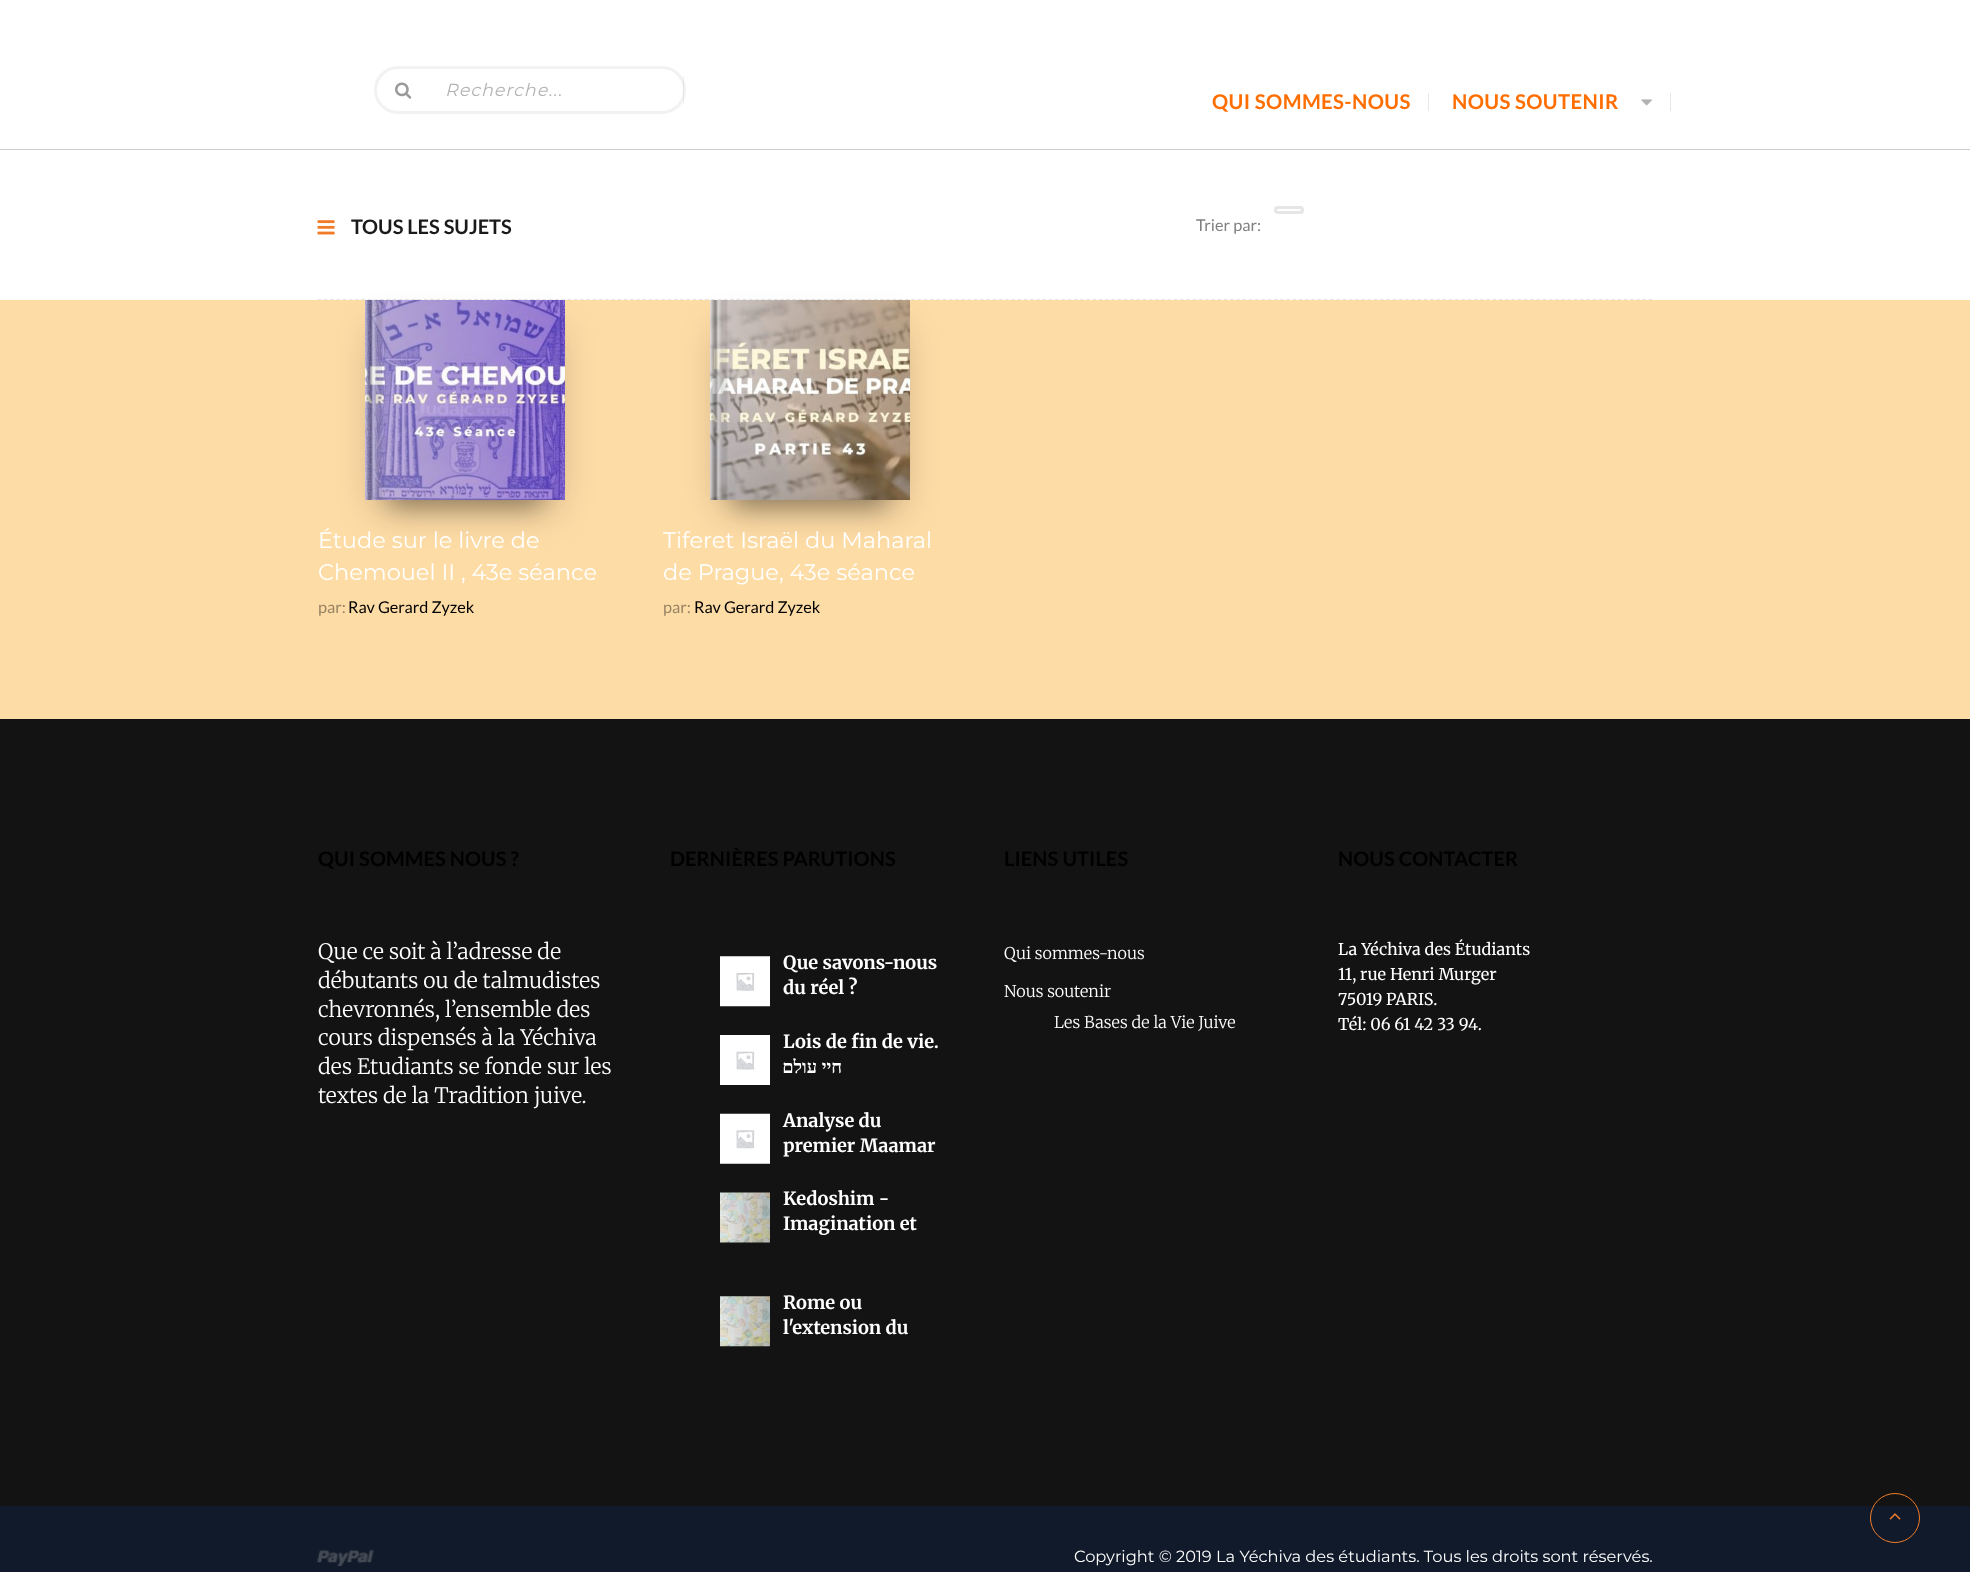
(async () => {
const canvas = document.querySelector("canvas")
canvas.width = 1970
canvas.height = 1572
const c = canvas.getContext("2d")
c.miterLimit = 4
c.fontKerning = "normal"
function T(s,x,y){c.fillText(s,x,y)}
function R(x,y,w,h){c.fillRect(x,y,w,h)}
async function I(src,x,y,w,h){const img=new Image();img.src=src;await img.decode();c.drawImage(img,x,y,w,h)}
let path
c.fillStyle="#fedca6"
R(0,0,1970,1572)
c.fillStyle="#fff"
R(0,0,1970,149)
c.fillStyle="#ccc"
R(0,149,1970,1)
c.beginPath()
c.roundRect(375.5,67.5,309,45,22.5)
c.strokeStyle="#f2f2f2"
c.lineWidth=3
c.stroke()
await I("1.png",395,82,17,17)
c.fillStyle="#0000000d"
R(683,76,1,28)
c.letterSpacing="1px"
c.font="italic 100 17.5px Montserrat"
c.fillStyle="#b3b3b3"
T("Recherche...",445,96)
c.letterSpacing="0.4px"
c.font="bold 20.25px Lato"
c.fillStyle="#ff6e00"
T("QUI SOMMES-NOUS",1212,109)
c.fillStyle="#e6e6e6"
R(1428,93,1,18)
c.fillStyle="#ff6e00"
T("NOUS SOUTENIR",1452,109)
await I("2.png",1641,99,11,7)
c.fillStyle="#e6e6e6"
R(1670,93,1,18)
c.fillStyle="#fff"
R(0,150,1970,150)
c.fillStyle="#0000004d"
c.filter="blur(19px)"
c.beginPath()
c.rect(378,331,175,175)
c.fill()
c.filter="none"
c.fillStyle="#0000003d"
c.filter="blur(11px)"
c.beginPath()
c.roundRect(390,408,150,100,6)
c.fill()
c.filter="none"
await I("4.png",365,300,200,200)
await I("5.png",365,300,18,200)
c.fillStyle="#0000004d"
c.filter="blur(19px)"
c.beginPath()
c.rect(723,331,175,175)
c.fill()
c.filter="none"
c.fillStyle="#0000003d"
c.filter="blur(11px)"
c.beginPath()
c.roundRect(735,408,150,100,6)
c.fill()
c.filter="none"
await I("6.png",710,300,200,200)
await I("7.png",710,300,18,200)
path = new Path2D("M317.5 299.5h1335")
c.strokeStyle="#0000001a"
c.lineWidth=1.2
c.setLineDash([3.75,2.5])
c.stroke(path)
await I("3.png",317,220,18,15)
c.letterSpacing="0px"
c.font="bold 20px Lato"
c.fillStyle="#1a1a1a"
T("TOUS LES SUJETS",351,234)
c.beginPath()
c.roundRect(1275.5,207.5,27,5,2.5)
c.strokeStyle="#e6e6e6"
c.lineWidth=3
c.setLineDash([])
c.stroke()
c.font="16.25px Lato"
c.fillStyle="#808080"
T("Trier par:",1196,231)
c.font="100 22.5px Montserrat"
c.fillStyle="#fff"
T("Étude sur le livre de",318,548)
T("Chemouel II , 43e séance",318,580)
c.font="16.25px Lato"
c.fillStyle="#988464"
T("par:",318,613)
c.fillStyle="#000"
T("Rav Gerard Zyzek",348,613)
c.font="100 22.5px Montserrat"
c.fillStyle="#fff"
T("Tiferet Israël du Maharal",663,548)
T("de Prague, 43e séance",663,580)
c.font="16.25px Lato"
c.fillStyle="#988464"
T("par:",663,613)
c.fillStyle="#000"
T("Rav Gerard Zyzek",694,613)
c.fillStyle="#131313"
R(0,719,1970,787)
c.letterSpacing="0.1px"
c.font="bold 20px Lato"
c.fillStyle="#000"
T("QUI SOMMES NOUS ?",318,866)
c.letterSpacing="0px"
c.font="300 21.25px Merriweather"
c.fillStyle="#fff"
T("Que ce soit à l’adresse de",318,959)
T("débutants ou de talmudistes",318,988)
T("chevronnés, l’ensemble des",318,1017)
T("cours dispensés à la Yéchiva",318,1045)
T("des Etudiants se fonde sur les",318,1074)
T("textes de la Tradition juive.",318,1103)
c.letterSpacing="0.1px"
c.font="bold 20px Lato"
c.fillStyle="#000"
T("DERNIÈRES PARUTIONS",670,866)
await I("8.png",720,956,50,51)
c.letterSpacing="0px"
c.font="bold 18.25px Merriweather"
c.fillStyle="#fff"
T("Que savons-nous",783,969)
T("du réel ?",783,994)
await I("9.png",720,1035,50,50)
T("Lois de fin de vie.",783,1048)
c.direction="rtl"
c.font="bold 18.25px Liberation Serif"
T("חיי עולם",842,1073)
await I("10.png",720,1113,50,51)
c.direction="ltr"
c.font="bold 18.25px Merriweather"
T("Analyse du",783,1127)
T("premier Maamar",783,1152)
await I("11.png",720,1192,50,51)
T("Kedoshim -",783,1205)
T("Imagination et",783,1230)
await I("12.png",720,1296,50,51)
T("Rome ou",783,1309)
c.save()
c.beginPath()
c.rect(783,1290,162,50)
c.clip()
T("l'extension du",783,1334)
c.restore()
c.letterSpacing="0.1px"
c.font="bold 20px Lato"
c.fillStyle="#000"
T("LIENS UTILES",1004,866)
c.letterSpacing="0px"
c.font="300 16.25px Merriweather"
c.fillStyle="#fff"
T("Qui sommes-nous",1004,959)
T("Nous soutenir",1004,997)
T("Les Bases de la Vie Juive",1054,1028)
c.letterSpacing="0.1px"
c.font="bold 20px Lato"
c.fillStyle="#000"
T("NOUS CONTACTER",1338,866)
c.letterSpacing="0px"
c.font="16.25px Merriweather"
c.fillStyle="#fff"
T("La Yéchiva des Étudiants",1338,955)
T("11, rue Henri Murger",1338,980)
T("75019 PARIS.",1338,1005)
T("Tél: 06 61 42 33 94.",1338,1030)
c.fillStyle="#101a2a"
R(0,1506,1970,66)
await I("13.png",317,1549,57,17)
c.font="100 16.25px Montserrat"
c.fillStyle="#fff"
T("Copyright © 2019 La Yéchiva des étudiants. Tous les droits sont réservés.",1074,1562)
c.beginPath()
c.arc(1895,1518,24.5,0,7)
c.strokeStyle="#f07c29"
c.lineWidth=1
c.stroke()
await I("14.png",1889,1513,12,7)
})()
